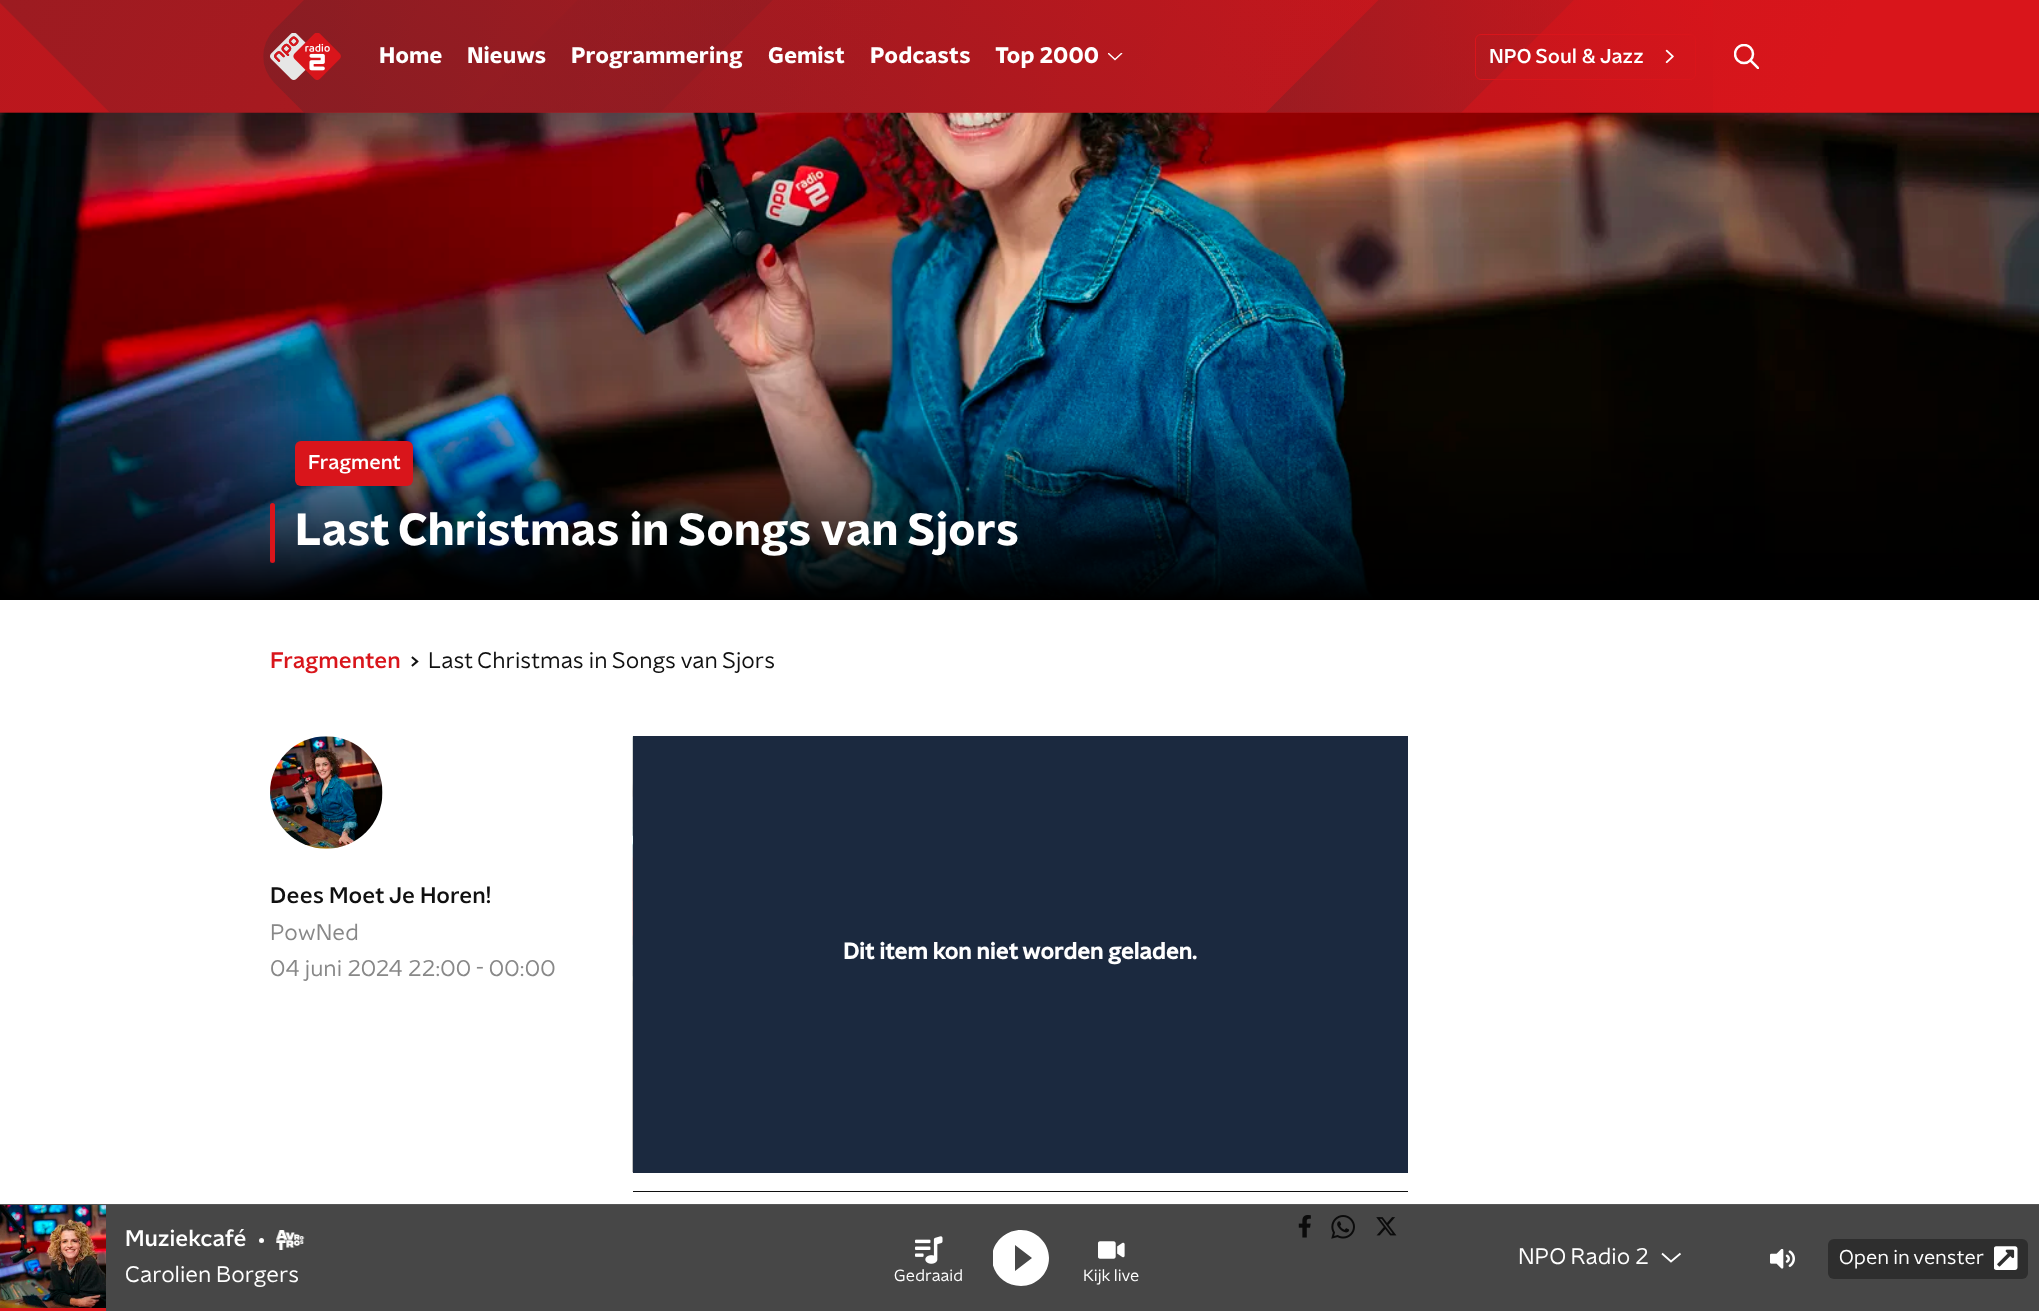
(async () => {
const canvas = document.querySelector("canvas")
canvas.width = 2039
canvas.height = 1311
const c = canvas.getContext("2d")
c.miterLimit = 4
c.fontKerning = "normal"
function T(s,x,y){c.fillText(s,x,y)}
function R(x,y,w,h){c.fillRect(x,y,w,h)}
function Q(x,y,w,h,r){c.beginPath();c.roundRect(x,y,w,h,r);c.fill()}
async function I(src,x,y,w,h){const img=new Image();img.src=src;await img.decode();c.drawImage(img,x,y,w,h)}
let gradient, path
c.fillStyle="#fff"
R(0,0,2039,1311)
c.fillStyle="#474747"
R(106,1205,1933,106)
gradient = c.createLinearGradient(1879,457,161,-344)
gradient.addColorStop(.11,"#d9151b")
gradient.addColorStop(1,"#9c1b21")
c.fillStyle = gradient
R(0,0,2039,113)
await I("1.png",0,0,1713,113)
await I("2.png",270,33,71,47)
c.font="bold 22.5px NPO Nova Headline"
c.fillStyle="#fff"
T("Home",379,63)
T("Nieuws",467,63)
T("Programmering",571,63)
T("Gemist",768,63)
T("Podcasts",870,63)
T("Top 2000",995,63)
c.save()
c.beginPath()
c.rect(1108,53,15,8)
c.clip()
path = new Path2D("M1108 53l7 6.5l7-6.5")
c.strokeStyle="#fff"
c.lineWidth=1.4
c.stroke(path)
c.restore()
c.beginPath()
c.roundRect(1475.5,34.5,220,45,5.5)
c.strokeStyle="#d9151b"
c.stroke()
c.font="500 20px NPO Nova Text"
T("NPO Soul & Jazz",1489,63)
await I("3.png",1665,49,9,15)
c.save()
c.beginPath()
c.rect(1734,44,25,25)
c.clip()
c.beginPath()
c.arc(1744,54,9,0,7)
c.strokeStyle="#fff"
c.lineWidth=2.5
c.stroke()
path = new Path2D("M1750.5 60.5l7.5 7.5")
c.lineCap="square"
c.stroke(path)
c.restore()
await I("4.png",0,112,2039,488)
c.fillStyle="#d9151b"
Q(295,441,118,45,6)
c.fillStyle="#fff"
T("Fragment",308,469)
c.fillStyle="#d9151b"
Q(270,503,5,60,2.5)
c.font="bold 45px NPO Nova Headline"
c.fillStyle="#fff"
T("Last Christmas in Songs van Sjors",295,545)
c.font="500 22.5px NPO Nova Text"
c.fillStyle="#d9151b"
T("Fragmenten",270,668)
await I("5.png",411,656,8,11)
c.font="22.5px NPO Nova Text"
c.fillStyle="#101010"
T("Last Christmas in Songs van Sjors",428,668)
await I("6.png",270,736,113,113)
c.font="500 22.5px NPO Nova Text"
T("Dees Moet Je Horen!",270,903)
c.font="22.5px NPO Nova Text"
c.fillStyle="#888"
T("PowNed",270,940)
T("04 juni 2024 22:00 - 00:00",270,976)
await I("7.png",632,736,1,437)
c.fillStyle="#1b293f"
R(633,736,775,437)
c.font="bold 22.5px NPO Nova Text"
c.fillStyle="#fff"
T("Dit item kon niet worden geladen.",843,959)
c.fillStyle="#101010"
R(633,1191,775,1)
await I("8.png",1298,1215,13,23)
await I("9.png",1331,1215,24,24)
await I("10.png",1376,1217,21,19)
c.fillStyle="#565656"
R(0,1204,2039,1)
await I("11.png",0,1205,106,103)
c.fillStyle="#d9151b"
R(0,1308,106,3)
c.font="500 22.5px NPO Nova Text"
c.fillStyle="#fff"
T("Muziekcafé",125,1246)
c.beginPath()
c.arc(261.5,1240.5,2.5,0,7)
c.fill()
await I("12.png",276,1230,29,20)
c.font="22.5px NPO Nova Text"
T("Carolien Borgers",125,1282)
T("NPO Radio 2",1518,1264)
path = new Path2D("M1662 1253.5l9 8l9.5-8")
c.strokeStyle="#fff"
c.lineWidth=1.8
c.stroke(path)
await I("13.png",1770,1249,25,20)
c.fillStyle="#2e2e2e"
Q(1828,1239,200,40,6)
c.font="20px NPO Nova Text"
c.fillStyle="#fff"
T("Open in venster",1839,1264)
await I("14.png",1994,1246,24,24)
await I("15.png",915,1236,28,28)
c.font="16.25px NPO Nova Text"
T("Gedraaid",894,1281)
c.save()
c.beginPath()
c.rect(993,1230,56,56)
c.clip()
path = new Path2D("M1021 1230c-16 0-29 13-29 28c0 16 13 28 29 28c15 0 28-12 28-28c0-15-13-28-28-28zm-6 41v-26l17 13z")
c.fill(path)
c.restore()
await I("16.png",1098,1241,27,18)
T("Kijk live",1083,1281)
})()
